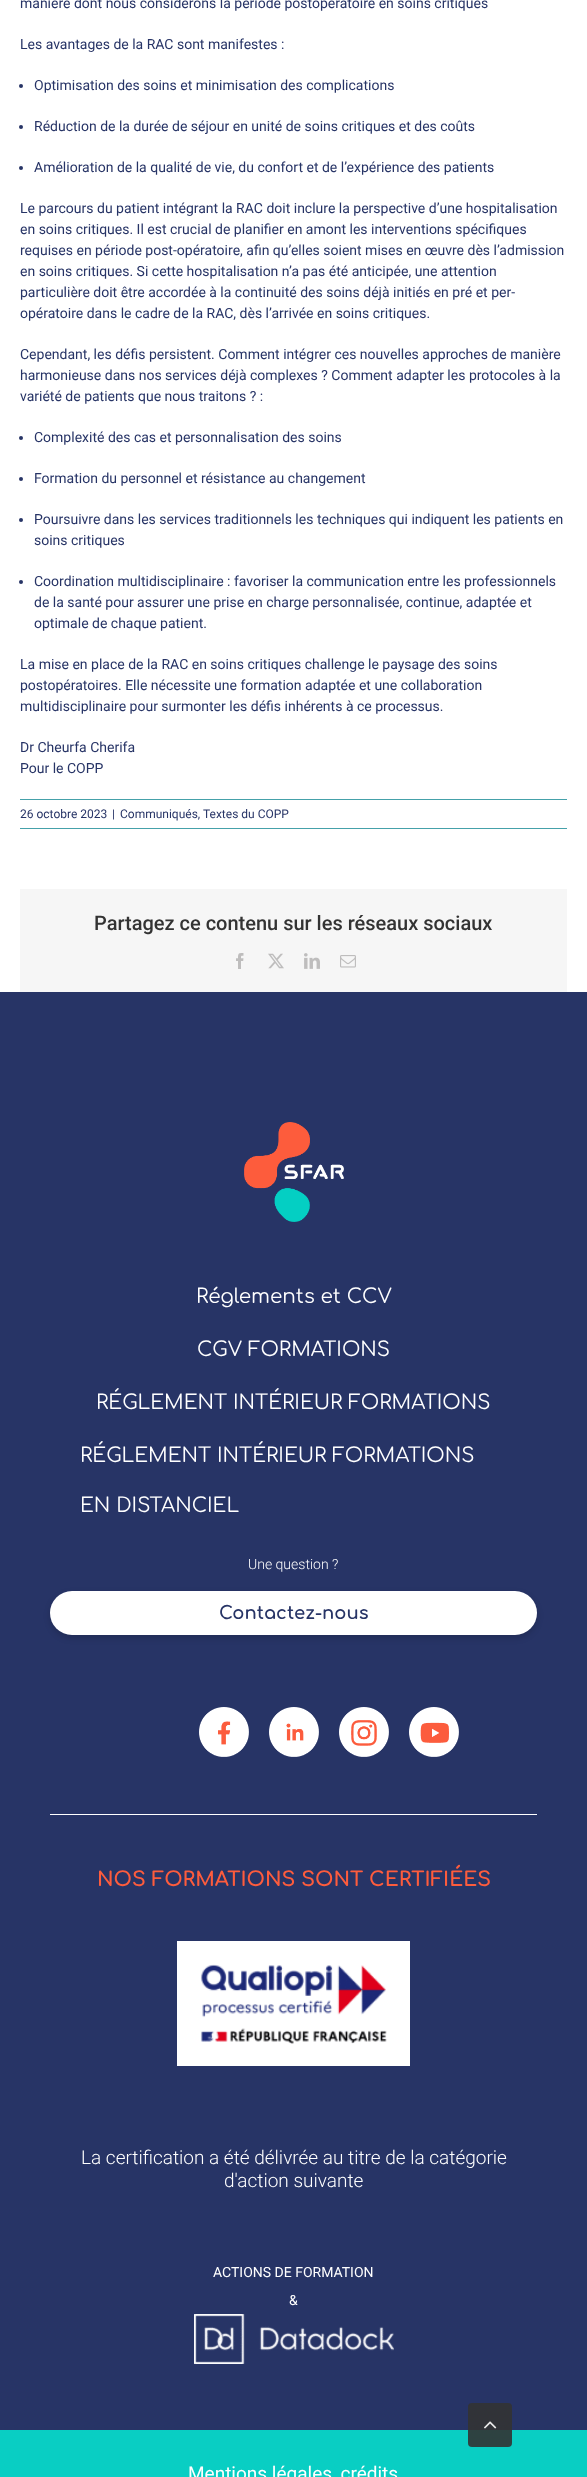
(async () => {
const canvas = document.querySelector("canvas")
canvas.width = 587
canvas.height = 2477
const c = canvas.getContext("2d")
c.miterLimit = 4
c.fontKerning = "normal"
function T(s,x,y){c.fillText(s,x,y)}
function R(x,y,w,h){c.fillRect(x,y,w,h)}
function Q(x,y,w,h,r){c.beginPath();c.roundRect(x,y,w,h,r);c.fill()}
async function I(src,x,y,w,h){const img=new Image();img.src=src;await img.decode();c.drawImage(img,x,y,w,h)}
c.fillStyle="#fff"
R(0,0,587,2477)
c.font="14px Roboto"
c.fillStyle="#273466"
T("manière dont nous considérons la période postopératoire en soins critiques",20,8)
T("Les avantages de la RAC sont manifestes :",20,49)
c.beginPath()
c.arc(21,86,2,0,7)
c.fill()
T("Optimisation des soins et minimisation des complications",34,90)
c.beginPath()
c.arc(21,127,2,0,7)
c.fill()
T("Réduction de la durée de séjour en unité de soins critiques et des coûts",34,131)
c.beginPath()
c.arc(21,168,2,0,7)
c.fill()
T("Amélioration de la qualité de vie, du confort et de l’expérience des patients",34,172)
T("Le parcours du patient intégrant la RAC doit inclure la perspective d’une hospitalisation",20,213)
T("en soins critiques. Il est crucial de planifier en amont les interventions spécifiques",20,234)
T("requises en période post-opératoire, afin qu’elles soient mises en œuvre dès l’admission",20,255)
T("en soins critiques. Si cette hospitalisation n’a pas été anticipée, une attention",20,276)
T("particulière doit être accordée à la continuité des soins déjà initiés en pré et per-",20,297)
T("opératoire dans le cadre de la RAC, dès l’arrivée en soins critiques.",20,318)
T("Cependant, les défis persistent. Comment intégrer ces nouvelles approches de manière",20,359)
T("harmonieuse dans nos services déjà complexes ? Comment adapter les protocoles à la",20,380)
T("variété de patients que nous traitons ? :",20,401)
c.beginPath()
c.arc(21,438,2,0,7)
c.fill()
T("Complexité des cas et personnalisation des soins",34,442)
c.beginPath()
c.arc(21,479,2,0,7)
c.fill()
T("Formation du personnel et résistance au changement",34,483)
c.beginPath()
c.arc(21,520,2,0,7)
c.fill()
T("Poursuivre dans les services traditionnels les techniques qui indiquent les patients en",34,524)
T("soins critiques",34,545)
c.beginPath()
c.arc(21,582,2,0,7)
c.fill()
T("Coordination multidisciplinaire : favoriser la communication entre les professionnels",34,586)
T("de la santé pour assurer une prise en charge personnalisée, continue, adaptée et",34,607)
T("optimale de chaque patient.",34,628)
T("La mise en place de la RAC en soins critiques challenge le paysage des soins",20,669)
T("postopératoires. Elle nécessite une formation adaptée et une collaboration",20,690)
T("multidisciplinaire pour surmonter les défis inhérents à ce processus.",20,711)
T("Dr Cheurfa Cherifa",20,752)
T("Pour le COPP",20,773)
c.fillStyle="#45a1aa"
R(20,799,547,1)
R(20,828,547,1)
c.font="12px Roboto"
c.fillStyle="#273466"
T("26 octobre 2023",20,818)
T("|",112,818)
T("Communiqués, Textes du COPP",120,818)
c.fillStyle="#f6f6f6"
R(20,889,547,103)
c.font="500 20px Roboto"
c.fillStyle="#333"
T("Partagez ce contenu sur les réseaux sociaux",94,930)
await I("1.png",236,953,8,16)
await I("2.png",268,953,16,16)
await I("3.png",304,953,16,16)
await I("4.png",340,955,16,13)
c.fillStyle="#273466"
R(0,992,587,1438)
await I("5.png",244,1122,100,100)
c.font="20px Comfortaa"
c.fillStyle="#fff"
T("Réglements et CCV",196,1303)
T("CGV FORMATIONS",197,1356)
T("RÉGLEMENT INTÉRIEUR FORMATIONS",96,1409)
T("RÉGLEMENT INTÉRIEUR FORMATIONS",80,1462)
T("EN DISTANCIEL",80,1512)
c.font="300 14px Roboto"
T("Une question ?",248,1569)
c.fillStyle="#00000029"
c.filter="blur(3px)"
c.beginPath()
c.roundRect(50,1594,487,44,22)
c.fill()
c.filter="none"
c.fillStyle="#fff"
Q(50,1591,487,44,22)
c.font="bold 18px Comfortaa"
c.fillStyle="#273466"
T("Contactez-nous",219,1619)
await I("6.png",199,1707,50,50)
await I("7.png",269,1707,50,50)
await I("8.png",339,1707,50,50)
await I("9.png",409,1707,50,50)
c.fillStyle="#fff"
R(50,1814,487,1)
c.font="bold 20px Comfortaa"
c.fillStyle="#fd5c3d"
T("NOS FORMATIONS SONT CERTIFIÉES",97,1886)
await I("10.png",177,1941,233,125)
c.font="300 19px Roboto"
c.fillStyle="#fff"
T("La certification a été délivrée au titre de la catégorie",81,2164)
T("d'action suivante",224,2187)
c.font="14px Roboto"
T("ACTIONS DE FORMATION",213,2277)
T("&",289,2305)
await I("11.png",194,2314,200,50)
c.fillStyle="#09cec3"
R(0,2430,587,47)
c.font="19px Roboto"
c.fillStyle="#fff"
T("Mentions légales, crédits",188,2480)
c.fillStyle="#333333e6"
Q(468,2403,44,44,4)
await I("12.png",484,2421,13,8)
})()
